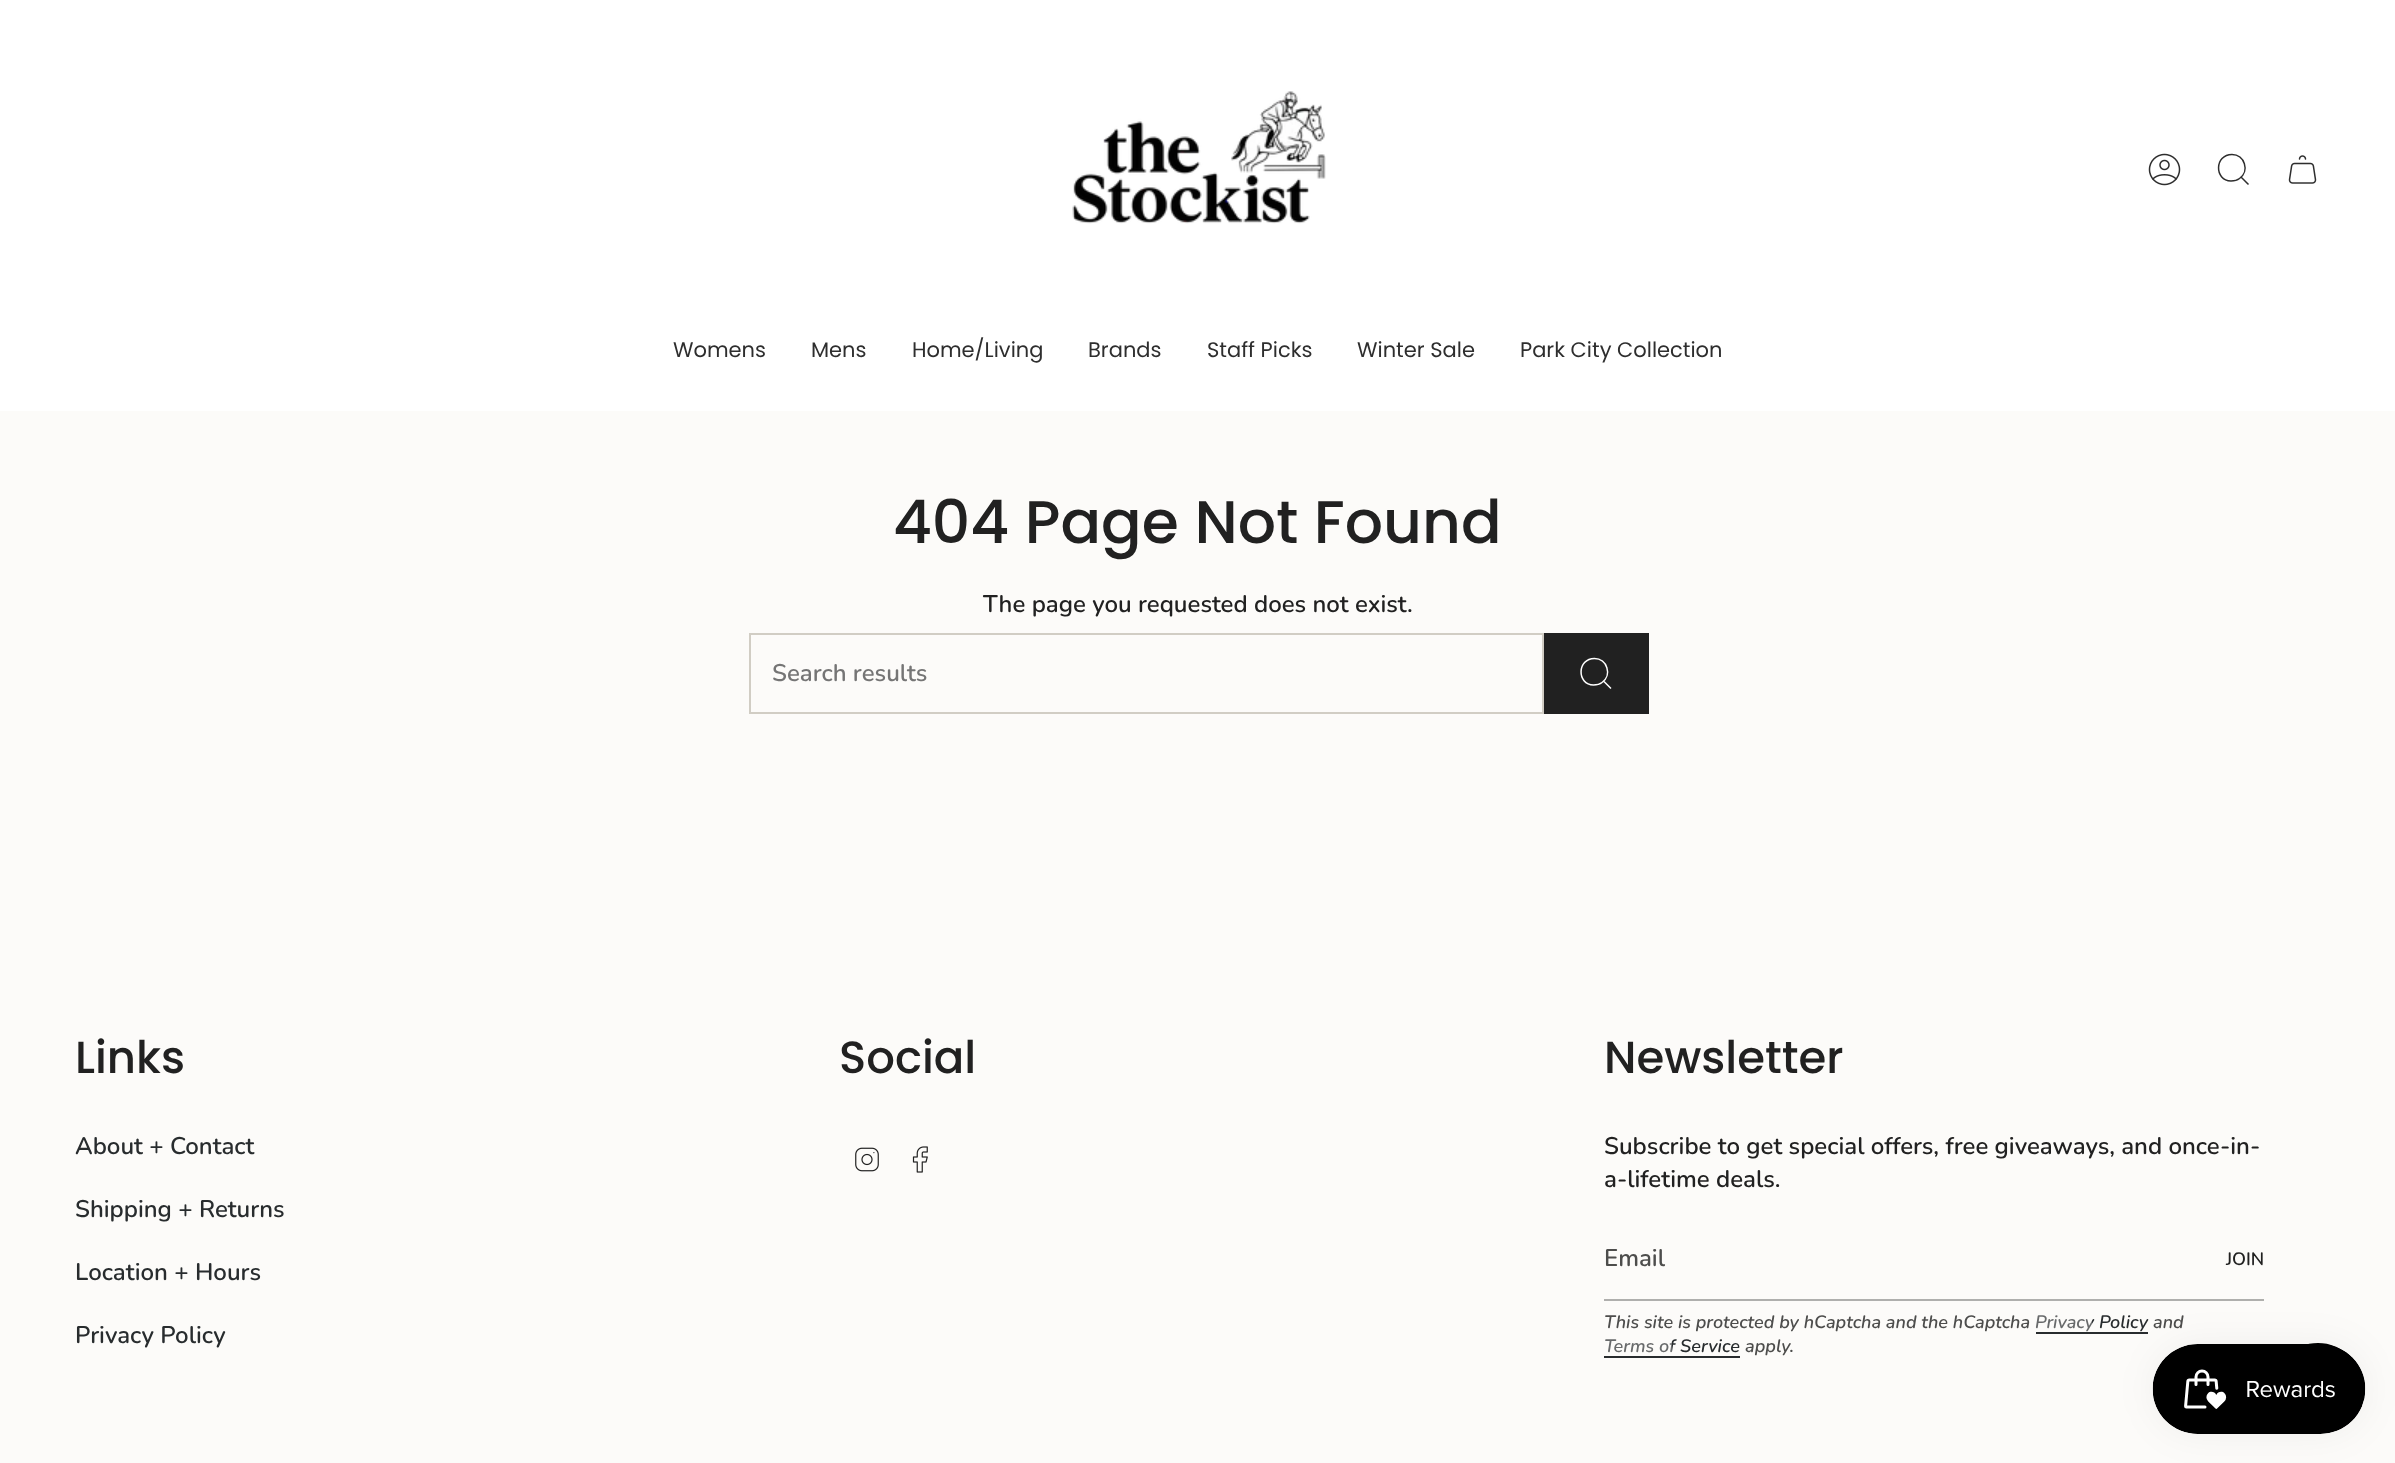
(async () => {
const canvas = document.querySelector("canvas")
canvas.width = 2395
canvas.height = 1463
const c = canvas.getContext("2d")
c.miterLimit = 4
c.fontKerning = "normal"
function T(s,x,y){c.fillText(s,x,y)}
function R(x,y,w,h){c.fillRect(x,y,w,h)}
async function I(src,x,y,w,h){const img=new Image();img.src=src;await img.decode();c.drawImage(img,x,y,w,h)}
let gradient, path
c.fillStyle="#fcfbf9"
R(0,0,2395,1463)
c.fillStyle="#fff"
R(0,0,2395,411)
await I("1.png",1072,91,254,133)
await I("2.png",2148,153,33,33)
path = new Path2D("M2232 154.5c12.5 0 18 16.5 7.5 24c-2.5 2-5.5 2.5-8.5 2.5c-17-.5-16.5-26.5 1-26.5zm9 22.5l7.5 7.5")
c.strokeStyle="#2e2e2e"
c.lineWidth=1.5
c.stroke(path)
await I("3.png",2288,155,29,29)
c.font="21px Poppins"
c.fillStyle="#2e2e2e"
T("Womens",673,357)
T("Mens",811,357)
T("Home/Living",912,357)
T("Brands",1088,357)
T("Staff Picks",1207,357)
T("Winter Sale",1357,357)
T("Park City Collection",1520,357)
c.font="500 60px Poppins"
c.fillStyle="#212121"
T("404 Page Not Found",893,543)
c.font="600 24px Nunito"
T("The page you requested does not exist.",983,612)
c.strokeStyle="#d1cdc4"
c.lineWidth=2
c.strokeRect(750,634,793,79)
c.fillStyle="#757575"
T("Search results",772,681)
c.fillStyle="#212121"
R(1544,633,105,81)
path = new Path2D("M1594.5 658.5c12.5 0 18 16.5 7.5 24c-2.5 2-5.5 2.5-8.5 2.5c-17-.5-16.5-26.5 1-26.5zm9 22.5l7.5 7.5")
c.strokeStyle="#fff"
c.lineWidth=1.5
c.stroke(path)
c.font="500 45px Poppins"
T("Links",75,1073)
c.font="600 24px Nunito"
c.fillStyle="#282c2e"
T("About + Contact",75,1154)
T("Shipping + Returns",75,1217)
T("Location + Hours",75,1280)
T("Privacy Policy",75,1343)
c.font="500 45px Poppins"
c.fillStyle="#212121"
T("Social",839,1073)
await I("4.png",855,1147,24,25)
await I("5.png",912,1146,16,27)
T("Newsletter",1604,1073)
c.font="600 24px Nunito"
T("Subscribe to get special offers, free giveaways, and once-in-",1604,1154)
T("a-lifetime deals.",1604,1187)
c.fillStyle="#afafad"
R(1604,1299,660,2)
c.fillStyle="#4d4d4c"
T("Email",1604,1266)
c.font="600 18px Nunito"
c.fillStyle="#212121"
T("JOIN",2226,1265)
c.font="italic 600 18px Nunito"
c.fillStyle="#4d4d4c"
T("This site is protected by hCaptcha and the hCaptcha",1604,1328)
gradient = c.createLinearGradient(2035,1322,2148,1322)
gradient.addColorStop(0,"#686a6b")
gradient.addColorStop(.5,"#686a6b")
gradient.addColorStop(.5,"#282c2e")
gradient.addColorStop(1,"#282c2e")
c.fillStyle = gradient
T("Privacy Policy",2035,1328)
c.fillStyle="#282c2e"
R(2036,1332,112,2)
c.fillStyle="#4d4d4c"
T("and",2153,1328)
gradient = c.createLinearGradient(1604,1346,1740,1346)
gradient.addColorStop(0,"#686a6b")
gradient.addColorStop(.5,"#686a6b")
gradient.addColorStop(.5,"#282c2e")
gradient.addColorStop(1,"#282c2e")
c.fillStyle = gradient
T("Terms of Service",1604,1352)
c.fillStyle="#282c2e"
R(1604,1356,136,2)
c.fillStyle="#4d4d4c"
T("apply.",1745,1352)
c.fillStyle="#000"
c.beginPath()
c.arc(2318,1388,45,0,7)
c.fill()
c.fillStyle="#0000000d"
c.filter="blur(19px)"
c.beginPath()
c.roundRect(2153,1344,213,90,45)
c.fill()
c.filter="none"
await I("6.png",2152,1344,214,90)
})()
